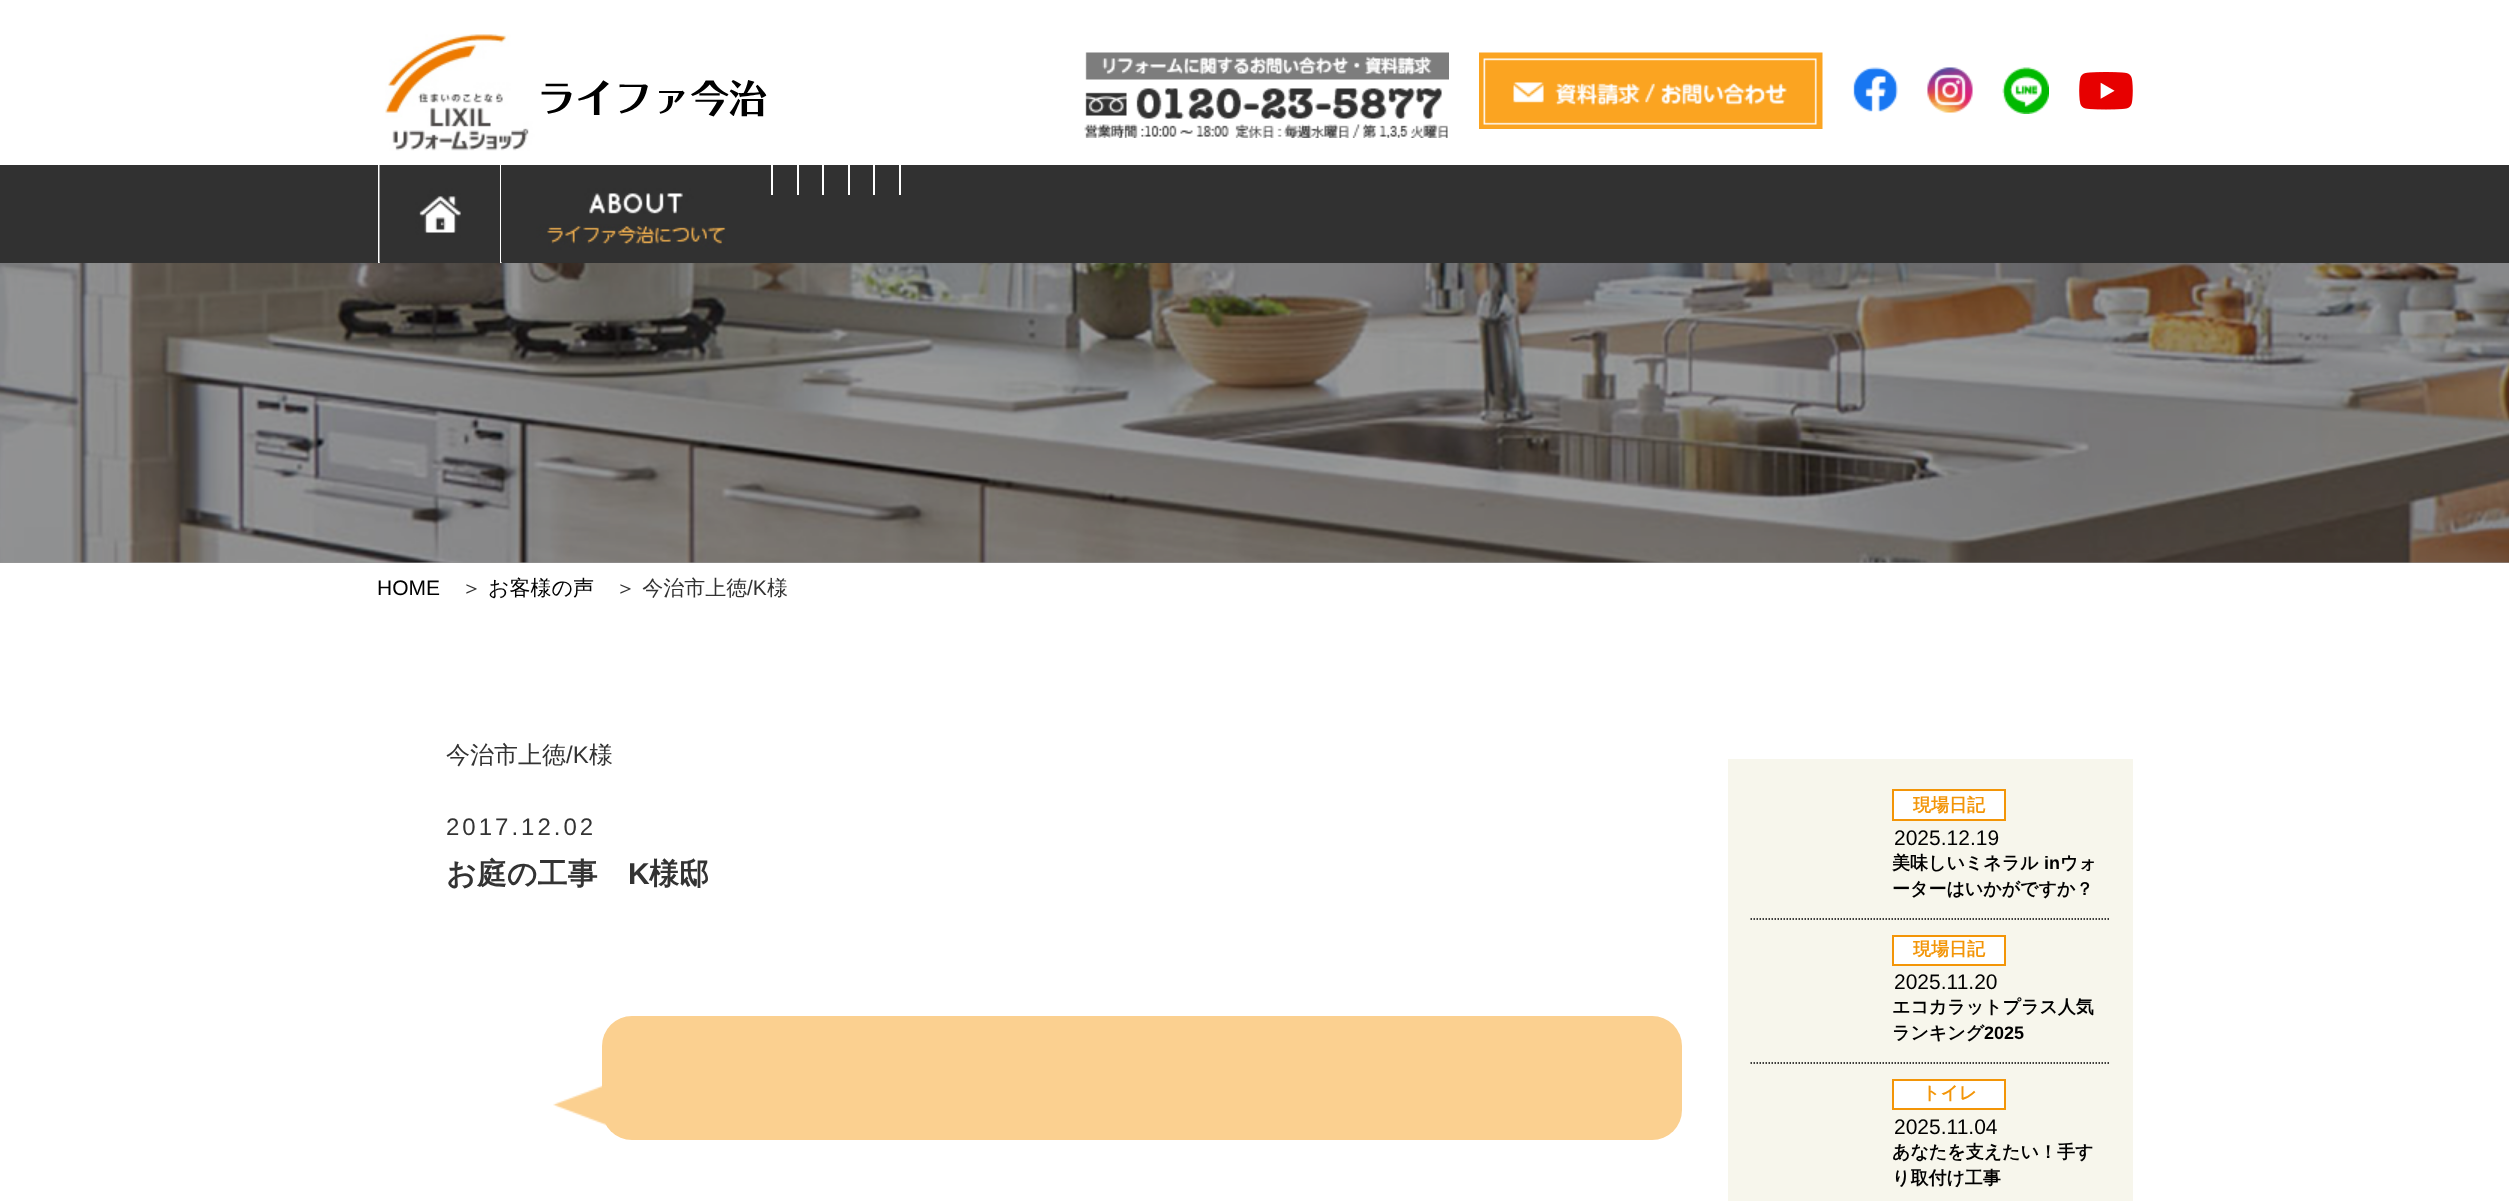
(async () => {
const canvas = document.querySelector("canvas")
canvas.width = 2509
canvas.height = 1201
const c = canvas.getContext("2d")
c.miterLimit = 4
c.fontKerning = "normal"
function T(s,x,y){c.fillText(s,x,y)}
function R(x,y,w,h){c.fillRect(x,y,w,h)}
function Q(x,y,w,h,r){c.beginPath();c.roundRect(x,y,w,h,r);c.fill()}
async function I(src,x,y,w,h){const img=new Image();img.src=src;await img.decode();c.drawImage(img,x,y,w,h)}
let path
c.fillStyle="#fff"
R(0,0,2509,1201)
c.fillStyle="#999"
R(0,562,2509,1)
await I("1.png",385,34,382,117)
await I("2.png",1084,52,365,86)
await I("3.png",1479,52,344,77)
await I("4.png",1853,67,45,45)
await I("5.png",1927,67,46,46)
await I("6.png",2002,67,47,47)
await I("7.png",2079,72,54,38)
c.fillStyle="#313131"
R(0,165,2509,98)
c.fillStyle="#fff"
R(378,165,2,98)
await I("8.png",379,165,82,98)
R(500,165,2,98)
await I("9.png",501,165,225,98)
R(771,165,2,30)
R(797,165,2,30)
R(822,165,2,30)
R(848,165,2,30)
R(899,165,2,30)
R(873,165,2,30)
await I("10.png",0,263,2509,300)
c.font="21px Liberation Sans"
c.fillStyle="#000"
T("HOME",377,595)
c.font="500 21px WenQuanYi Zen Hei"
c.fillStyle="#333"
T("＞",461,595)
c.fillStyle="#000"
T("お客様の声",488,595)
c.fillStyle="#333"
T("＞ 今治市上徳",615,595)
c.font="21px Liberation Sans"
T("/K",747,595)
c.font="500 21px WenQuanYi Zen Hei"
T("様",767,595)
c.font="500 24px WenQuanYi Zen Hei"
T("今治市上徳",446,763)
c.font="24px Liberation Sans"
T("/K",566,763)
c.font="500 24px WenQuanYi Zen Hei"
T("様",589,763)
c.letterSpacing="3px"
c.font="24px Liberation Sans"
T("2017.12.02",446,835)
c.letterSpacing="0px"
c.font="bold 30px WenQuanYi Zen Hei"
T("お庭の工事",446,884)
c.font="bold 30px Liberation Sans"
T("K",628,884)
c.font="bold 30px WenQuanYi Zen Hei"
T("様邸",649,884)
c.fillStyle="#fbd090"
Q(602,1016,1080,124,30)
await I("11.png",553,1085,54,41)
c.fillStyle="#f7f6ec"
R(1728,759,405,442)
path = new Path2D("M1750.5 919h360")
c.strokeStyle="#000"
c.lineWidth=1.5
c.setLineDash([1.5,1.5])
c.stroke(path)
c.fillStyle="#fff"
c.beginPath()
c.rect(1893,790,112,30)
c.fill()
c.strokeStyle="#f39507"
c.lineWidth=2
c.setLineDash([])
c.stroke()
c.font="bold 18px WenQuanYi Zen Hei"
c.fillStyle="#f39507"
T("現場日記",1913,811)
c.font="21px Liberation Sans"
c.fillStyle="#000"
T("2025.12.19",1894,845)
c.font="bold 18px WenQuanYi Zen Hei"
T("美味しいミネラル",1892,869)
c.font="bold 18px Liberation Sans"
T("in",2044,869)
c.font="bold 18px WenQuanYi Zen Hei"
T("ウォ",2060,869)
T("ーターはいかがですか？",1892,895)
path = new Path2D("M1750.5 1063h360")
c.strokeStyle="#000"
c.lineWidth=1.5
c.setLineDash([1.5,1.5])
c.stroke(path)
c.fillStyle="#fff"
c.beginPath()
c.rect(1893,936,112,29)
c.fill()
c.strokeStyle="#f39507"
c.lineWidth=2
c.setLineDash([])
c.stroke()
c.fillStyle="#f39507"
T("現場日記",1913,955)
c.font="21px Liberation Sans"
c.fillStyle="#000"
T("2025.11.20",1894,989)
c.font="bold 18px WenQuanYi Zen Hei"
T("エコカラットプラス人気",1892,1013)
T("ランキング",1892,1039)
c.font="bold 18px Liberation Sans"
T("2025",1984,1039)
c.fillStyle="#fff"
c.beginPath()
c.rect(1893,1080,112,29)
c.fill()
c.stroke()
c.font="bold 18px WenQuanYi Zen Hei"
c.fillStyle="#f39507"
T("トイレ",1922,1099)
c.font="21px Liberation Sans"
c.fillStyle="#000"
T("2025.11.04",1894,1134)
c.font="bold 18px WenQuanYi Zen Hei"
T("あなたを支えたい！手す",1892,1158)
T("り取付け工事",1892,1184)
})()
